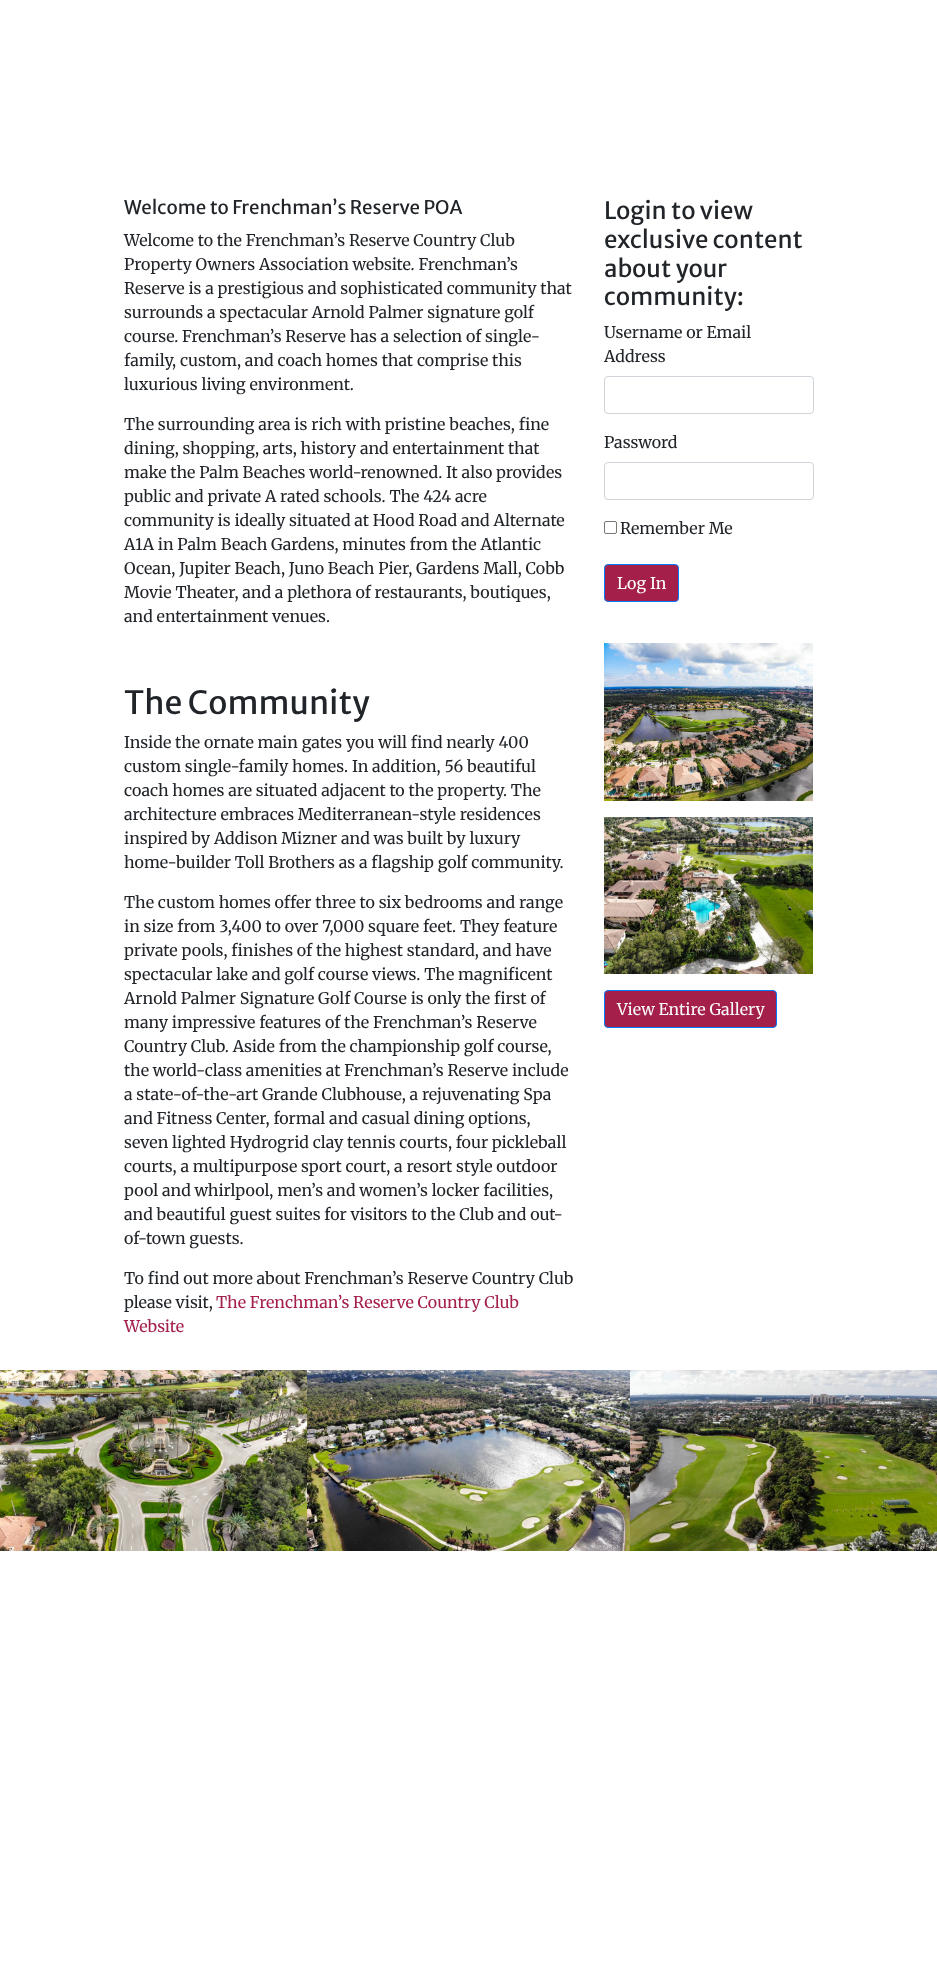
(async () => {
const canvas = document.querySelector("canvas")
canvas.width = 937
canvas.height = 1965
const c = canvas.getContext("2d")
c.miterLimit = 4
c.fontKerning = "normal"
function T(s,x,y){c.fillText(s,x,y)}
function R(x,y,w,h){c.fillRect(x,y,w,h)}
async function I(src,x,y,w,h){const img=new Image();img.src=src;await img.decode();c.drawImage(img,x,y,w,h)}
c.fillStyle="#fff"
R(0,0,937,1965)
c.font="18.75px Merriweather Sans"
c.fillStyle="#212529"
T("Welcome to Frenchman’s Reserve POA",124,214)
c.font="300 16px Merriweather"
T("Welcome to the Frenchman’s Reserve Country Club",124,246)
T("Property Owners Association website. Frenchman’s",124,270)
T("Reserve is a prestigious and sophisticated community that",124,294)
T("surrounds a spectacular Arnold Palmer signature golf",124,318)
T("course. Frenchman’s Reserve has a selection of single-",124,342)
T("family, custom, and coach homes that comprise this",124,366)
T("luxurious living environment.",124,390)
T("The surrounding area is rich with pristine beaches, fine",124,430)
T("dining, shopping, arts, history and entertainment that",124,454)
T("make the Palm Beaches world-renowned. It also provides",124,478)
T("public and private A rated schools. The 424 acre",124,502)
T("community is ideally situated at Hood Road and Alternate",124,526)
T("A1A in Palm Beach Gardens, minutes from the Atlantic",124,550)
T("Ocean, Jupiter Beach, Juno Beach Pier, Gardens Mall, Cobb",124,574)
T("Movie Theater, and a plethora of restaurants, boutiques,",124,598)
T("and entertainment venues.",124,622)
c.font="32px Merriweather Sans"
T("The Community",124,714)
c.font="300 16px Merriweather"
T("Inside the ornate main gates you will find nearly 400",124,748)
T("custom single-family homes. In addition, 56 beautiful",124,772)
T("coach homes are situated adjacent to the property. The",124,796)
T("architecture embraces Mediterranean-style residences",124,820)
T("inspired by Addison Mizner and was built by luxury",124,844)
T("home-builder Toll Brothers as a flagship golf community.",124,868)
T("The custom homes offer three to six bedrooms and range",124,908)
T("in size from 3,400 to over 7,000 square feet. They feature",124,932)
T("private pools, finishes of the highest standard, and have",124,956)
T("spectacular lake and golf course views. The magnificent",124,980)
T("Arnold Palmer Signature Golf Course is only the first of",124,1004)
T("many impressive features of the Frenchman’s Reserve",124,1028)
T("Country Club. Aside from the championship golf course,",124,1052)
T("the world-class amenities at Frenchman’s Reserve include",124,1076)
T("a state-of-the-art Grande Clubhouse, a rejuvenating Spa",124,1100)
T("and Fitness Center, formal and casual dining options,",124,1124)
T("seven lighted Hydrogrid clay tennis courts, four pickleball",124,1148)
T("courts, a multipurpose sport court, a resort style outdoor",124,1172)
T("pool and whirlpool, men’s and women’s locker facilities,",124,1196)
T("and beautiful guest suites for visitors to the Club and out-",124,1220)
T("of-town guests.",124,1244)
T("To find out more about Frenchman’s Reserve Country Club",124,1284)
T("please visit,",124,1308)
c.fillStyle="#a41f4a"
T("The Frenchman’s Reserve Country Club",216,1308)
T("Website",124,1332)
c.font="24px Merriweather Sans"
c.fillStyle="#212529"
T("Login to view",604,219)
T("exclusive content",604,248)
T("about your",604,277)
T("community:",604,305)
c.font="300 16px Merriweather"
T("Username or Email",604,338)
T("Address",604,362)
c.beginPath()
c.roundRect(604.5,376.5,209,37,3.5)
c.strokeStyle="#ced4da"
c.stroke()
T("Password",604,448)
c.beginPath()
c.roundRect(604.5,462.5,209,37,3.5)
c.stroke()
c.beginPath()
c.roundRect(604.5,521.5,12,12,1.5)
c.strokeStyle="#767676"
c.stroke()
T("Remember Me",620,534)
c.fillStyle="#a41f4a"
c.beginPath()
c.roundRect(604.5,564.5,74,37,3.5)
c.fill()
c.strokeStyle="#007bff"
c.stroke()
c.fillStyle="#fff"
T("Log In",617,589)
await I("1.png",604,643,209,158)
await I("2.png",604,817,209,157)
c.fillStyle="#a41f4a"
c.beginPath()
c.roundRect(604.5,990.5,172,37,3.5)
c.fill()
c.stroke()
c.fillStyle="#f8f9fa"
T("View Entire Gallery",617,1015)
await I("3.png",0,1370,307,181)
await I("4.png",307,1370,323,181)
await I("5.png",630,1370,307,181)
})()
